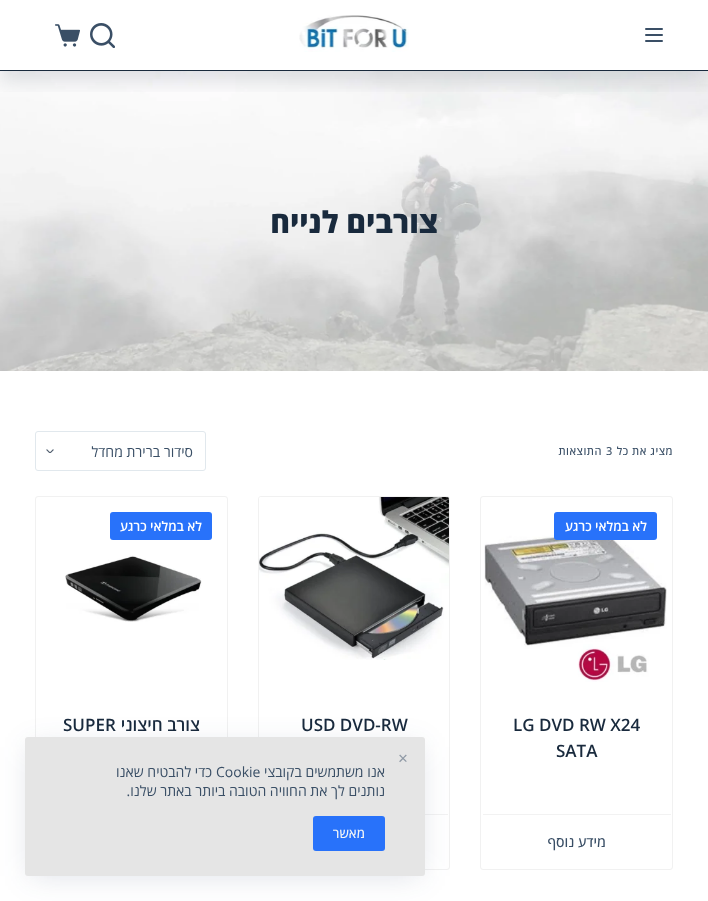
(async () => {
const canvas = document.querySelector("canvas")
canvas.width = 708
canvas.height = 901
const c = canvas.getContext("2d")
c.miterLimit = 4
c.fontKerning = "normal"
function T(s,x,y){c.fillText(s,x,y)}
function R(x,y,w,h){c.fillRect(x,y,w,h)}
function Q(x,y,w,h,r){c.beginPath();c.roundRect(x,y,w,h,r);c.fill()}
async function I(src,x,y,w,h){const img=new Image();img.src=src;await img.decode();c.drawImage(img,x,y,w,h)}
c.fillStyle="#fff"
R(0,0,708,901)
await I("4.png",0,71,708,300)
c.save()
c.beginPath()
c.rect(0,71,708,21)
c.clip()
c.fillStyle="#2c3e5026"
c.filter="blur(10px)"
c.beginPath()
c.rect(0,10,708,71)
c.fill()
c.filter="none"
c.restore()
c.fillStyle="#192a3d"
R(0,70,708,1)
c.fillStyle="#3a4f66"
Q(645,28,18,2,1)
Q(645,34,18,2,1)
Q(645,40,18,2,1)
await I("1.png",299,15,110,37)
await I("2.png",90,23,25,25)
await I("3.png",55,24,25,23)
c.direction="rtl"
c.font="800 30px Open Sans"
c.fillStyle="#192a3d"
T("צורבים לנייח",438,233)
c.letterSpacing="0.5px"
c.font="500 11px Open Sans"
c.fillStyle="#3a4f66"
T("מציג את כל",673,455)
c.direction="ltr"
T("3",606,455)
c.direction="rtl"
T("התוצאות",602,455)
await I("5.png",46,449,8,4)
c.beginPath()
c.roundRect(35.5,431.5,170,39,2.5)
c.strokeStyle="#e1e8ed"
c.stroke()
c.letterSpacing="0px"
c.font="14px Open Sans"
T("סידור ברירת מחדל",193,457)
c.beginPath()
c.roundRect(480.5,496.5,192,373,2.5)
c.strokeStyle="#f1f1f1"
c.stroke()
await I("6.png",484,531,183,151)
c.fillStyle="#2872fa"
Q(554,512,103,28,3)
c.font="600 13px Open Sans"
c.fillStyle="#fff"
T("לא במלאי כרגע",647,531)
c.direction="ltr"
c.font="600 17px Open Sans"
c.fillStyle="#192a3d"
T("LG DVD RW X24",513,731)
T("SATA",556,757)
c.fillStyle="#f2f2f2"
R(483,814,188,1)
c.direction="rtl"
c.font="500 14px Open Sans"
c.fillStyle="#3a4f66"
T("מידע נוסף",606,847)
c.beginPath()
c.roundRect(258.5,496.5,191,373,2.5)
c.stroke()
await I("7.png",259,497,190,163)
c.direction="ltr"
c.font="600 17px Open Sans"
c.fillStyle="#192a3d"
T("USD DVD-RW",301,731)
c.fillStyle="#f2f2f2"
R(425,814,23,1)
c.beginPath()
c.roundRect(35.5,496.5,192,373,2.5)
c.stroke()
c.fillStyle="#2872fa"
Q(110,512,102,28,3)
c.direction="rtl"
c.font="600 13px Open Sans"
c.fillStyle="#fff"
T("לא במלאי כרגע",202,531)
await I("8.png",65,555,137,67)
c.font="600 17px Open Sans"
c.fillStyle="#192a3d"
T("צורב חיצוני",200,731)
c.direction="ltr"
T("SUPER",63,731)
c.fillStyle="#22386526"
c.filter="blur(15px)"
c.beginPath()
c.rect(30,747,390,129)
c.fill()
c.filter="none"
c.fillStyle="#e5e5e5"
Q(25,737,400,139,3)
c.font="17px Liberation Sans"
c.fillStyle="#909aa6"
T("×",398,764)
c.direction="rtl"
c.font="14px Open Sans"
c.fillStyle="#3a4f66"
T("אנו משתמשים בקובצי",385,777)
c.direction="ltr"
T("Cookie",216,777)
c.direction="rtl"
T("כדי להבטיח שאנו",212,777)
T("נותנים לך את החוויה הטובה ביותר באתר שלנו.",385,796)
c.fillStyle="#2872fa"
Q(313,816,72,35,3)
c.font="500 13px Open Sans"
c.fillStyle="#f2f5f7"
T("מאשר",365,838)
})()
